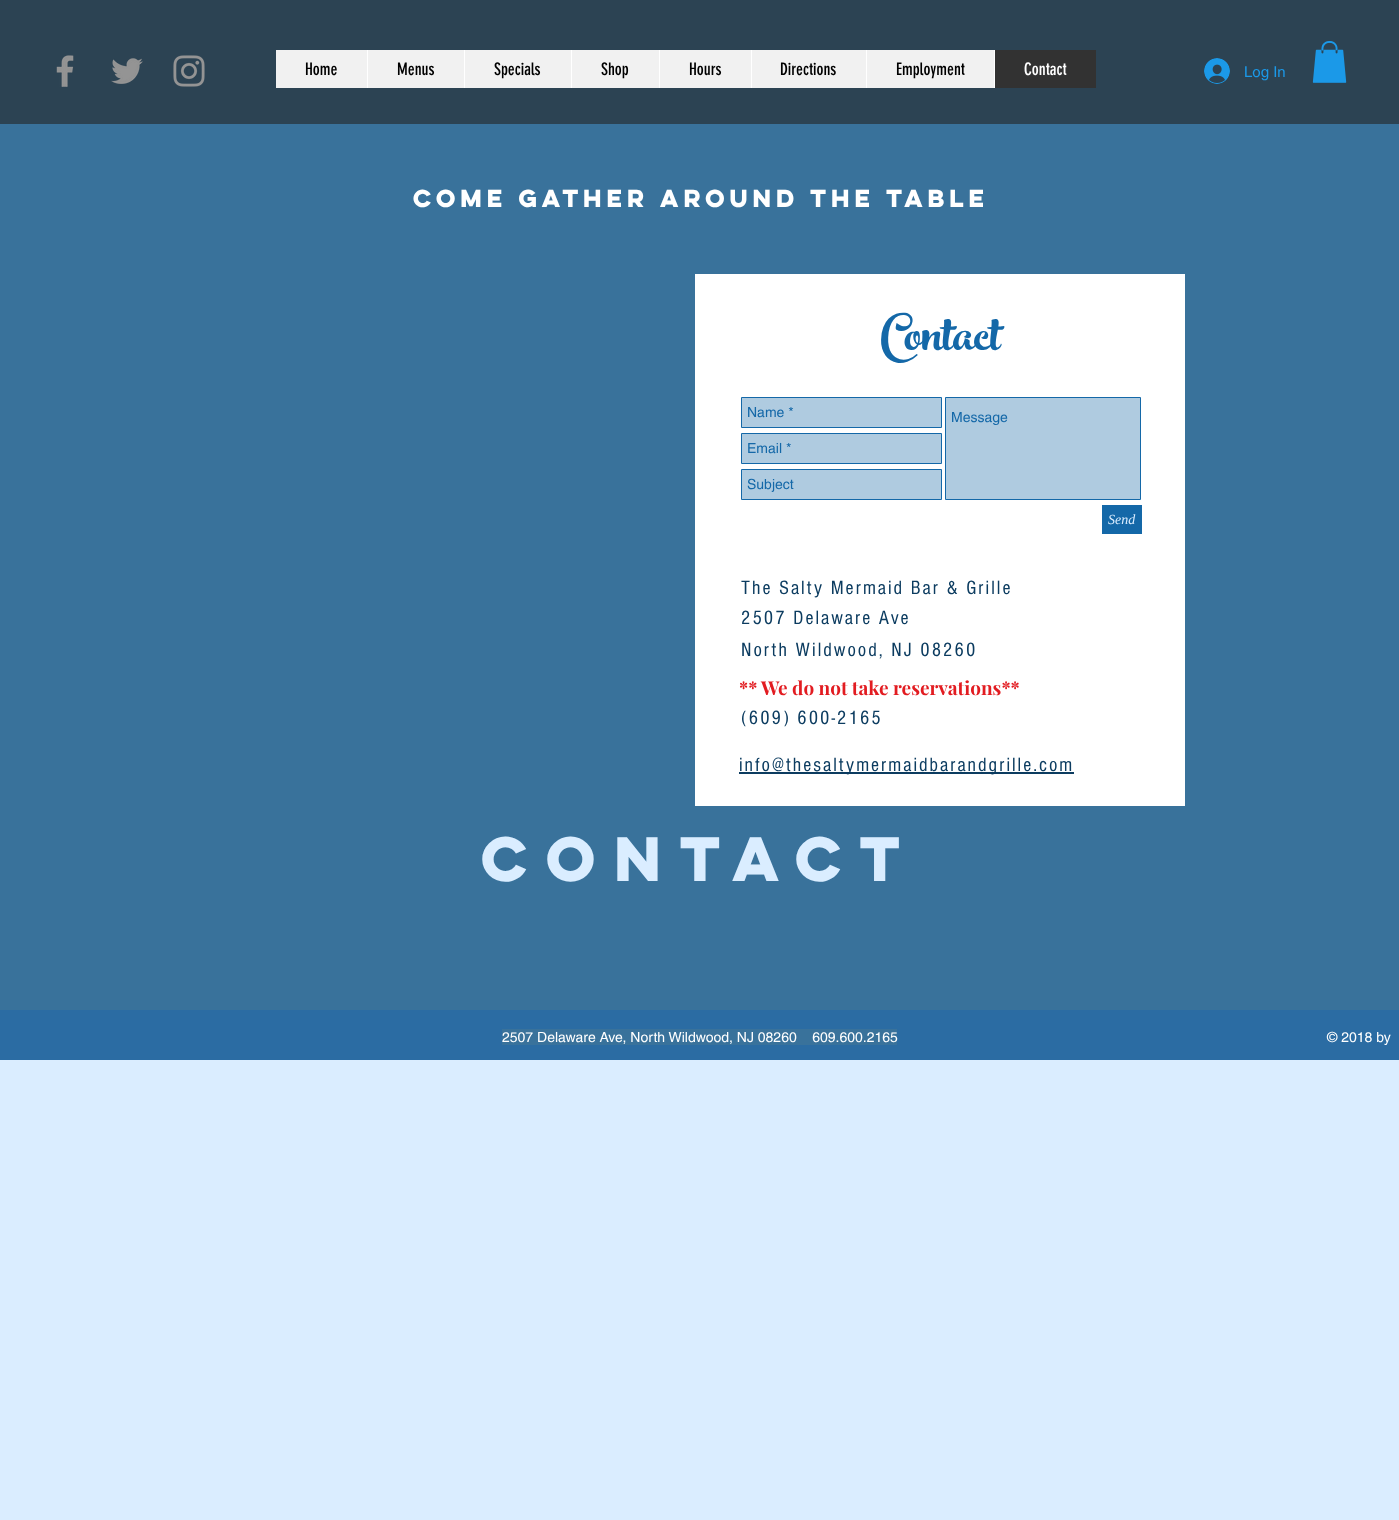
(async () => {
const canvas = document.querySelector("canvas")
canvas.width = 1399
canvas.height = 1520
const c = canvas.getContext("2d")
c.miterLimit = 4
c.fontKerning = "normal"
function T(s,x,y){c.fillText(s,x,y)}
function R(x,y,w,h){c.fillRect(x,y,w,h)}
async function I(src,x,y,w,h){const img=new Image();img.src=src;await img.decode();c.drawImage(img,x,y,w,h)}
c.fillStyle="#daedff"
R(0,0,1399,1520)
c.fillStyle="#2c4353"
R(0,0,1399,124)
await I("1.png",56,55,18,32)
await I("2.png",111,58,32,26)
await I("3.png",173,55,32,32)
c.fillStyle="#f1f1f1"
R(276,50,718,38)
c.font="17px 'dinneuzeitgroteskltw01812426'"
c.fillStyle="#000"
T("Home",305,75)
c.fillStyle="#fff"
R(367,50,1,38)
c.fillStyle="#000"
T("Menus",397,75)
c.fillStyle="#fff"
R(464,50,1,38)
c.fillStyle="#000"
T("Specials",494,75)
c.fillStyle="#fff"
R(571,50,1,38)
c.fillStyle="#000"
T("Shop",601,75)
c.fillStyle="#fff"
R(659,50,1,38)
c.fillStyle="#000"
T("Hours",689,75)
c.fillStyle="#fff"
R(751,50,1,38)
c.fillStyle="#000"
T("Directions",780,75)
c.fillStyle="#fff"
R(866,50,1,38)
c.fillStyle="#000"
T("Employment",896,75)
c.fillStyle="#323232"
R(995,50,101,38)
c.fillStyle="#fff"
R(994,50,1,38)
T("Contact",1024,75)
await I("4.png",1204,58,26,26)
c.font="15px helvetica"
c.fillStyle="#1b99e8"
T("Log In",1244,77)
await I("5.png",1312,41,35,42)
c.fillStyle="#39729b"
R(0,124,1399,886)
c.font="bold 22px 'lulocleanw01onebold'"
c.fillStyle="#fff"
T("Come Gather Around The Table",413,207)
R(695,274,490,532)
c.font="73px 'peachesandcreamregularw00'"
c.fillStyle="#1468a8"
T("Contact",881,350)
c.fillStyle="#afcbe0"
c.beginPath()
c.rect(741.5,397.5,200,30)
c.fill()
c.strokeStyle="#1468a8"
c.stroke()
c.font="14px helvetica"
c.fillStyle="#1468a8"
T("Name *",747,417)
c.fillStyle="#afcbe0"
c.beginPath()
c.rect(945.5,397.5,195,102)
c.fill()
c.stroke()
c.fillStyle="#1468a8"
T("Message",951,422)
c.fillStyle="#afcbe0"
c.beginPath()
c.rect(741.5,433.5,200,30)
c.fill()
c.stroke()
c.fillStyle="#1468a8"
T("Email *",747,453)
c.fillStyle="#afcbe0"
c.beginPath()
c.rect(741.5,469.5,200,30)
c.fill()
c.stroke()
c.fillStyle="#1468a8"
T("Subject",747,489)
R(1102,505,40,29)
c.font="italic 14px Liberation Serif"
c.fillStyle="#daedff"
T("Send",1108,524)
c.letterSpacing="2px"
c.font="20px 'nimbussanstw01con'"
c.fillStyle="#0c3c60"
T("The Salty Mermaid Bar & Grille",741,594)
T("2507 Delaware Ave",741,624)
T("North Wildwood, NJ 08260",741,656)
c.letterSpacing="0px"
c.font="bold 19px Playfair Display"
c.fillStyle="#e21c21"
T("** We do not take reservations**",739,695)
c.letterSpacing="2px"
c.font="20px 'nimbussanstw01con'"
c.fillStyle="#0c3c60"
T("(609) 600-2165",741,724)
R(739,772,335,2)
T("info@thesaltymermaidbarandgrille.com",739,771)
c.letterSpacing="6.25px"
c.font="bold 56px 'lulocleanw01onebold'"
c.fillStyle="#daedff"
T("ContacT",481,881)
c.fillStyle="#2b6ca3"
R(0,1010,1399,50)
c.fillStyle="#39729b"
R(502,1029,395,16)
c.letterSpacing="0px"
c.font="14px helvetica"
c.fillStyle="#fff"
T("2507 Delaware Ave, North Wildwood, NJ 08260    609.600.2165",502,1042)
T("© 2018 by",1327,1042)
})()
